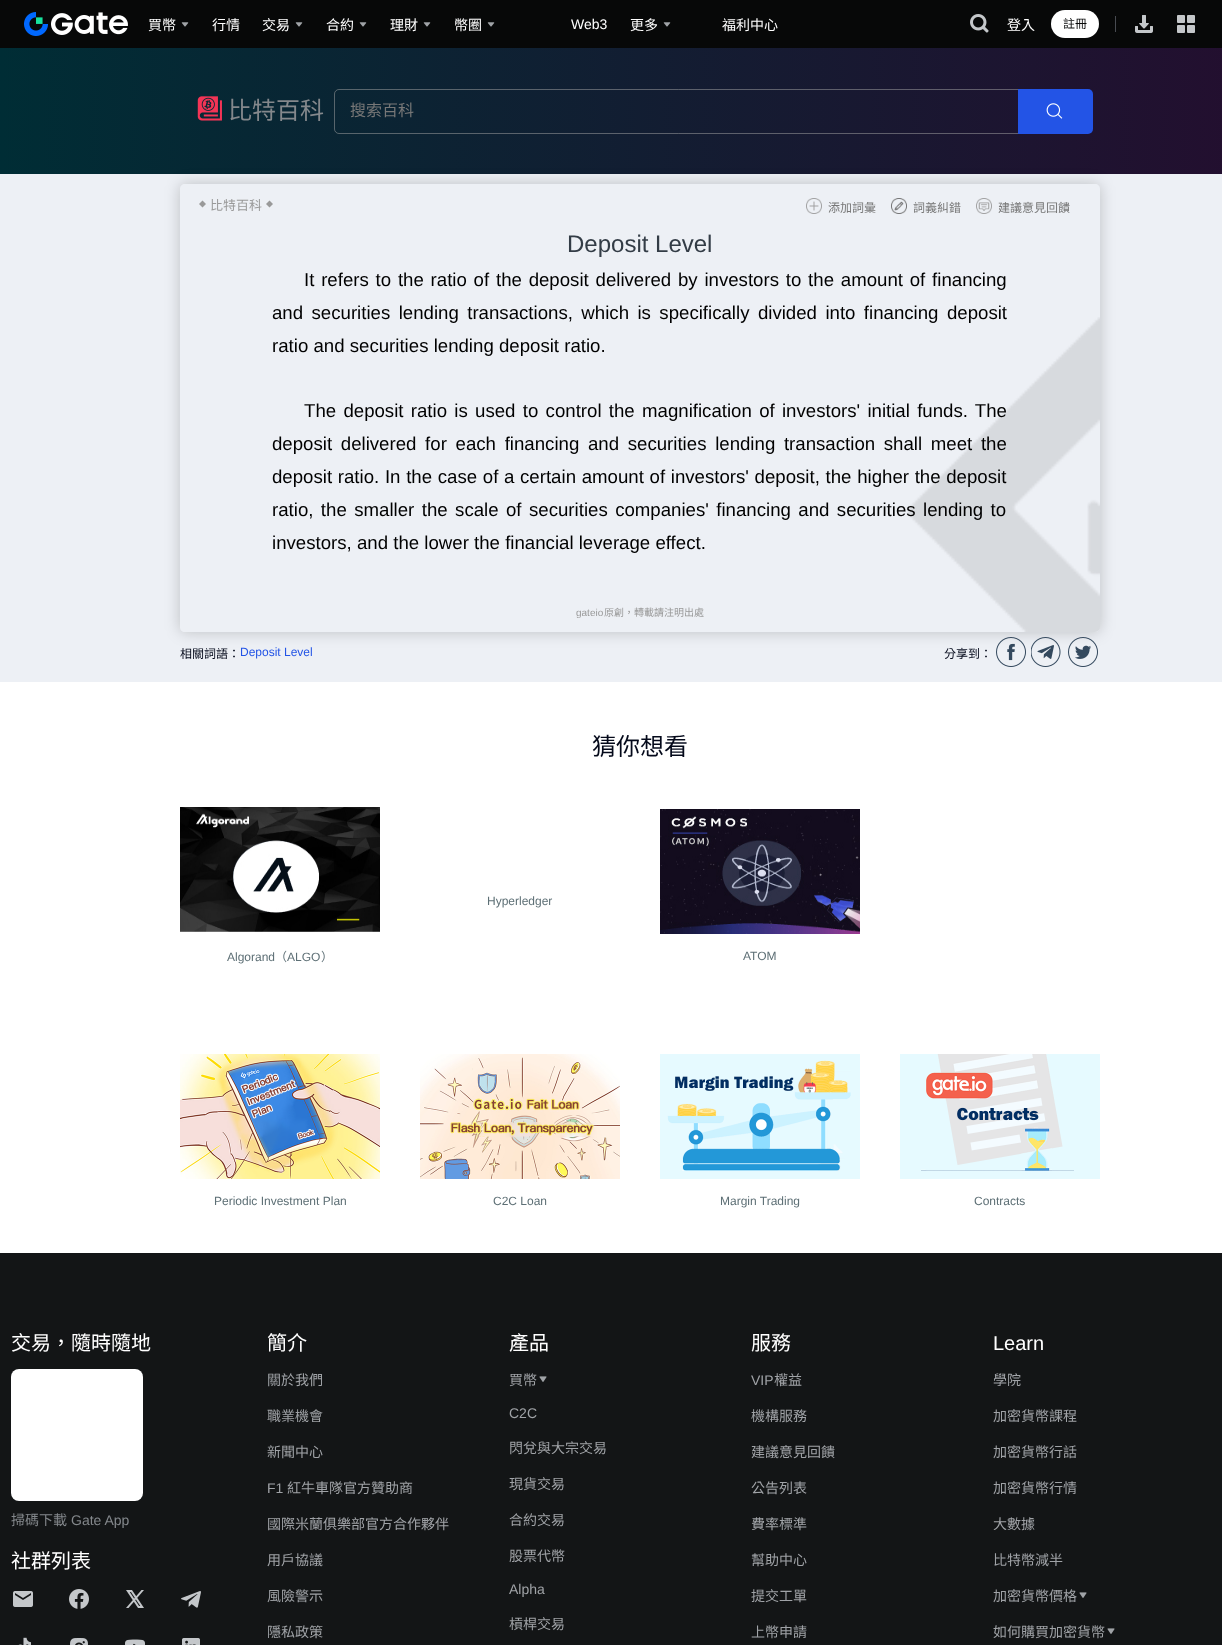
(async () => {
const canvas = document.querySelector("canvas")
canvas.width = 1222
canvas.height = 1645
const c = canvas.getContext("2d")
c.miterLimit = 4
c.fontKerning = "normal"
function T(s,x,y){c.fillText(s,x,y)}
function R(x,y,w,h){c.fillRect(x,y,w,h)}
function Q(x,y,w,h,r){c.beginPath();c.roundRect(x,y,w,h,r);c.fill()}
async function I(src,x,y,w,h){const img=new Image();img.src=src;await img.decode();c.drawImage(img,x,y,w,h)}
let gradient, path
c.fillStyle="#fff"
R(0,0,1222,1645)
c.fillStyle="#070808"
R(0,0,1222,48)
await I("1.png",24,12,104,24)
c.font="14px Noto Sans CJK TC"
c.fillStyle="#fff"
T("買幣",148,30)
await I("2.png",181,22,8,5)
T("行情",212,30)
T("交易",262,30)
await I("2.png",295,22,8,5)
T("合約",326,30)
await I("2.png",359,22,8,5)
T("理財",390,30)
await I("2.png",423,22,8,5)
T("幣圈",454,30)
await I("2.png",487,22,8,5)
c.font="14px Liberation Sans"
T("Web3",571,29)
c.font="14px Noto Sans CJK TC"
T("更多",630,30)
await I("2.png",663,22,8,5)
T("福利中心",722,30)
await I("3.png",970,14,19,19)
T("登入",1007,30)
Q(1051,10,48,28,14)
c.font="12px Noto Sans CJK TC"
c.fillStyle="#070808"
T("註冊",1063,28)
c.fillStyle="#484b51"
R(1115,16,1,16)
await I("4.png",1135,15,18,18)
await I("5.png",1177,15,18,18)
gradient = c.createLinearGradient(0,111,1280,111)
gradient.addColorStop(0,"#002d35")
gradient.addColorStop(1,"#240e2f")
c.fillStyle = gradient
R(0,48,1222,126)
await I("6.png",197,96,25,25)
c.font="24px Noto Sans CJK TC"
c.fillStyle="#84888c"
T("比特百科",228,119)
c.beginPath()
c.roundRect(334.5,89.5,684,44,[4.5,0,0,4.5])
c.strokeStyle="#a5a5a580"
c.stroke()
c.font="16px Noto Sans CJK TC"
c.fillStyle="#777"
T("搜索百科",350,116)
c.fillStyle="#2354e6"
c.beginPath()
c.roundRect(1018,89,75,45,[0,5,5,0])
c.fill()
await I("7.png",1046,103,17,16)
c.fillStyle="#edf0f5"
R(0,174,1222,508)
c.save()
path = new Path2D("M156 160h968v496h-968zm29 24h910c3 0 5 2 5 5v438c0 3-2 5-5 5h-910c-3 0-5-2-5-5v-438c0-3 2-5 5-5z")
c.clip(path,"evenodd")
c.fillStyle="#00000033"
c.filter="blur(7.5px)"
c.beginPath()
c.roundRect(180,184,920,448,5)
c.fill()
c.filter="none"
c.restore()
await I("8.png",907,317,193,315)
c.fillStyle="#999"
path = new Path2D("M202.5 200.5l3.5 3.5l-3.5 3.5l-3.5-3.5z")
c.fill(path)
c.font="13px Noto Sans CJK TC"
T("比特百科",210,210)
path = new Path2D("M269.5 200.5l3.5 3.5l-3.5 3.5l-3.5-3.5z")
c.fill(path)
await I("9.png",806,198,16,16)
c.font="12px Noto Sans CJK TC"
c.fillStyle="#777"
T("添加詞彙",828,212)
await I("10.png",891,198,16,16)
T("詞義糾錯",913,212)
await I("11.png",976,198,16,16)
T("建議意見回饋",998,212)
c.font="24px Liberation Sans"
c.fillStyle="#333c46"
T("Deposit Level",567,252)
c.wordSpacing="1.6px"
c.font="18.65px Liberation Sans"
c.fillStyle="#000"
T("It refers to the ratio of the deposit delivered by investors to the amount of financing",304,286)
c.wordSpacing="3.25px"
T("and securities lending transactions, which is specifically divided into financing deposit",272,319)
c.wordSpacing="0px"
T("ratio and securities lending deposit ratio.",272,352)
c.wordSpacing="2.1px"
T("The deposit ratio is used to control the magnification of investors' initial funds. The",304,417)
c.wordSpacing="3.5px"
T("deposit delivered for each financing and securities lending transaction shall meet the",272,450)
c.wordSpacing="0.5px"
T("deposit ratio. In the case of a certain amount of investors' deposit, the higher the deposit",272,483)
c.wordSpacing="2.25px"
T("ratio, the smaller the scale of securities companies' financing and securities lending to",272,516)
c.wordSpacing="0px"
T("investors, and the lower the financial leverage effect.",272,549)
c.font="10px Liberation Sans"
c.fillStyle="#999"
T("gateio",576,616)
c.font="10px Noto Sans CJK TC"
T("原創，轉載請注明出處",604,616)
c.font="12px Noto Sans CJK TC"
c.fillStyle="#04091a"
T("相關詞語：",180,658)
c.font="12px Liberation Sans"
c.fillStyle="#2354e6"
T("Deposit Level",240,656)
c.font="12px Noto Sans CJK TC"
c.fillStyle="#04091a"
T("分享到：",944,658)
await I("12.png",996,637,30,30)
await I("13.png",1031,637,30,30)
await I("14.png",1068,637,30,30)
c.font="24px Noto Sans CJK TC"
T("猜你想看",592,755)
c.font="12px Liberation Sans"
c.fillStyle="#5d6f75"
T("Hyperledger",487,905)
await I("15.png",180,807,200,125)
T("Algorand",227,961)
c.font="12px Noto Sans CJK TC"
T("（",275,961)
c.font="12px Liberation Sans"
T("ALGO",287,961)
c.font="12px Noto Sans CJK TC"
T("）",321,961)
await I("16.png",660,809,200,125)
c.font="12px Liberation Sans"
T("ATOM",743,960)
await I("17.png",180,1054,200,125)
T("Periodic Investment Plan",214,1205)
await I("18.png",420,1054,200,125)
T("C2C Loan",493,1205)
await I("19.png",660,1054,200,125)
T("Margin Trading",720,1205)
await I("20.png",900,1054,200,125)
T("Contracts",974,1205)
c.fillStyle="#131516"
R(0,1253,1222,392)
c.font="20px Noto Sans CJK TC"
c.fillStyle="#fff"
T("交易，隨時隨地",11,1350)
Q(11,1369,132,132,8)
c.font="14px Noto Sans CJK TC"
c.fillStyle="#84888c"
T("掃碼下載",11,1525)
c.font="14px Liberation Sans"
T("Gate App",71,1525)
c.font="20px Noto Sans CJK TC"
c.fillStyle="#fff"
T("社群列表",11,1568)
await I("21.png",13,1591,20,16)
await I("22.png",69,1589,20,20)
await I("23.png",126,1590,18,18)
await I("24.png",181,1591,20,17)
await I("25.png",18,1637,13,8)
await I("26.png",70,1638,18,7)
await I("27.png",125,1639,20,6)
await I("28.png",182,1638,18,7)
T("簡介",267,1350)
c.font="14px Noto Sans CJK TC"
c.fillStyle="#a0a3a7"
T("關於我們",267,1385)
T("職業機會",267,1421)
T("新聞中心",267,1457)
c.font="14px Liberation Sans"
T("F1",267,1493)
c.font="14px Noto Sans CJK TC"
T("紅牛車隊官方贊助商",287,1493)
T("國際米蘭俱樂部官方合作夥伴",267,1529)
T("用戶協議",267,1565)
T("風險警示",267,1601)
T("隱私政策",267,1637)
c.font="20px Noto Sans CJK TC"
c.fillStyle="#fff"
T("產品",509,1350)
c.font="14px Noto Sans CJK TC"
c.fillStyle="#a0a3a7"
T("買幣",509,1385)
await I("29.png",539,1376,8,6)
c.font="14px Liberation Sans"
T("C2C",509,1418)
c.font="14px Noto Sans CJK TC"
T("閃兌與大宗交易",509,1453)
T("現貨交易",509,1489)
T("合約交易",509,1525)
T("股票代幣",509,1561)
c.font="14px Liberation Sans"
T("Alpha",509,1594)
c.font="14px Noto Sans CJK TC"
T("槓桿交易",509,1629)
c.font="20px Noto Sans CJK TC"
c.fillStyle="#fff"
T("服務",751,1350)
c.font="14px Liberation Sans"
c.fillStyle="#a0a3a7"
T("VIP",751,1385)
c.font="14px Noto Sans CJK TC"
T("權益",774,1385)
T("機構服務",751,1421)
T("建議意見回饋",751,1457)
T("公告列表",751,1493)
T("費率標準",751,1529)
T("幫助中心",751,1565)
T("提交工單",751,1601)
T("上幣申請",751,1637)
c.font="20px Liberation Sans"
c.fillStyle="#fff"
T("Learn",993,1350)
c.font="14px Noto Sans CJK TC"
c.fillStyle="#a0a3a7"
T("學院",993,1385)
T("加密貨幣課程",993,1421)
T("加密貨幣行話",993,1457)
T("加密貨幣行情",993,1493)
T("大數據",993,1529)
T("比特幣減半",993,1565)
T("加密貨幣價格",993,1601)
await I("29.png",1079,1592,8,6)
T("如何購買加密貨幣",993,1637)
await I("29.png",1107,1628,8,6)
})()
